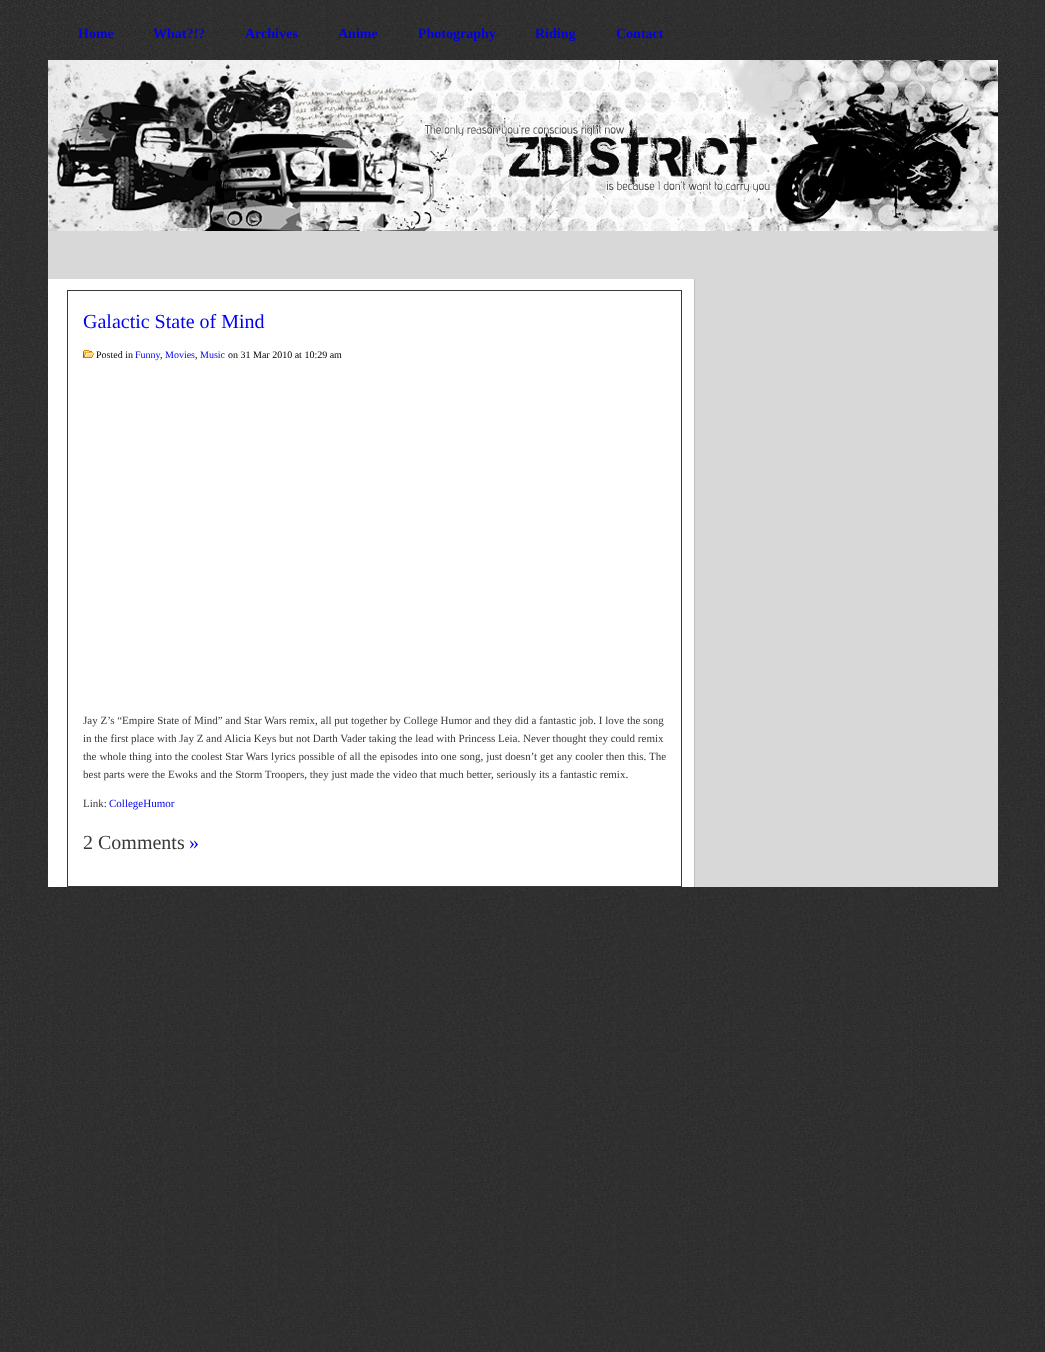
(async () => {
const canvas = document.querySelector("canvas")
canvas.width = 1045
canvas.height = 1352
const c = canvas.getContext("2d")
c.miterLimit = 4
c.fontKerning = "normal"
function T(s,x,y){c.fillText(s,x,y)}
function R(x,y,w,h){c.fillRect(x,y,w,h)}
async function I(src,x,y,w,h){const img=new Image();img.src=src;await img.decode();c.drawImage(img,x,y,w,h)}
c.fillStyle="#fff"
R(0,0,1045,1352)
await I("1.png",0,0,1045,1352)
await I("2.png",48,0,950,60)
c.font="bold 14px Liberation Serif"
c.fillStyle="#00e"
T("Home",78,38)
T("What?!?",153,38)
T("Archives",245,38)
T("Anime",338,38)
T("Photography",418,38)
T("Riding",535,38)
T("Contact",616,38)
await I("3.png",48,60,950,171)
c.fillStyle="#d8d8d8"
R(48,231,950,48)
await I("4.png",48,279,950,1)
await I("5.png",48,280,950,607)
c.strokeStyle="#393938"
c.strokeRect(67.5,290.5,614,596)
c.font="20px Liberation Serif"
c.fillStyle="#00e"
T("Galactic State of Mind",83,328)
await I("6.png",83,350,11,8)
c.font="10px Liberation Serif"
c.fillStyle="#000"
T("Posted in",96,358)
c.fillStyle="#00e"
T("Funny",135,358)
c.fillStyle="#000"
T(",",160,358)
c.fillStyle="#00e"
T("Movies",165,358)
c.fillStyle="#000"
T(",",195,358)
c.fillStyle="#00e"
T("Music",200,358)
c.fillStyle="#000"
T("on 31 Mar 2010 at 10:29 am",228,358)
c.font="11px Liberation Serif"
c.fillStyle="#393938"
T("Jay Z’s “Empire State of Mind” and Star Wars remix, all put together by College Humor and they did a fantastic job. I love the song",83,724)
T("in the first place with Jay Z and Alicia Keys but not Darth Vader taking the lead with Princess Leia. Never thought they could remix",83,742)
c.wordSpacing="0.2px"
T("the whole thing into the coolest Star Wars lyrics possible of all the episodes into one song, just doesn’t get any cooler then this. The",83,760)
c.wordSpacing="0px"
T("best parts were the Ewoks and the Storm Troopers, they just made the video that much better, seriously its a fantastic remix.",83,778)
T("Link:",83,807)
c.fillStyle="#00e"
T("CollegeHumor",109,807)
c.font="20px Liberation Serif"
c.fillStyle="#393938"
T("2 Comments",83,849)
c.fillStyle="#00e"
T("»",189,849)
})()
